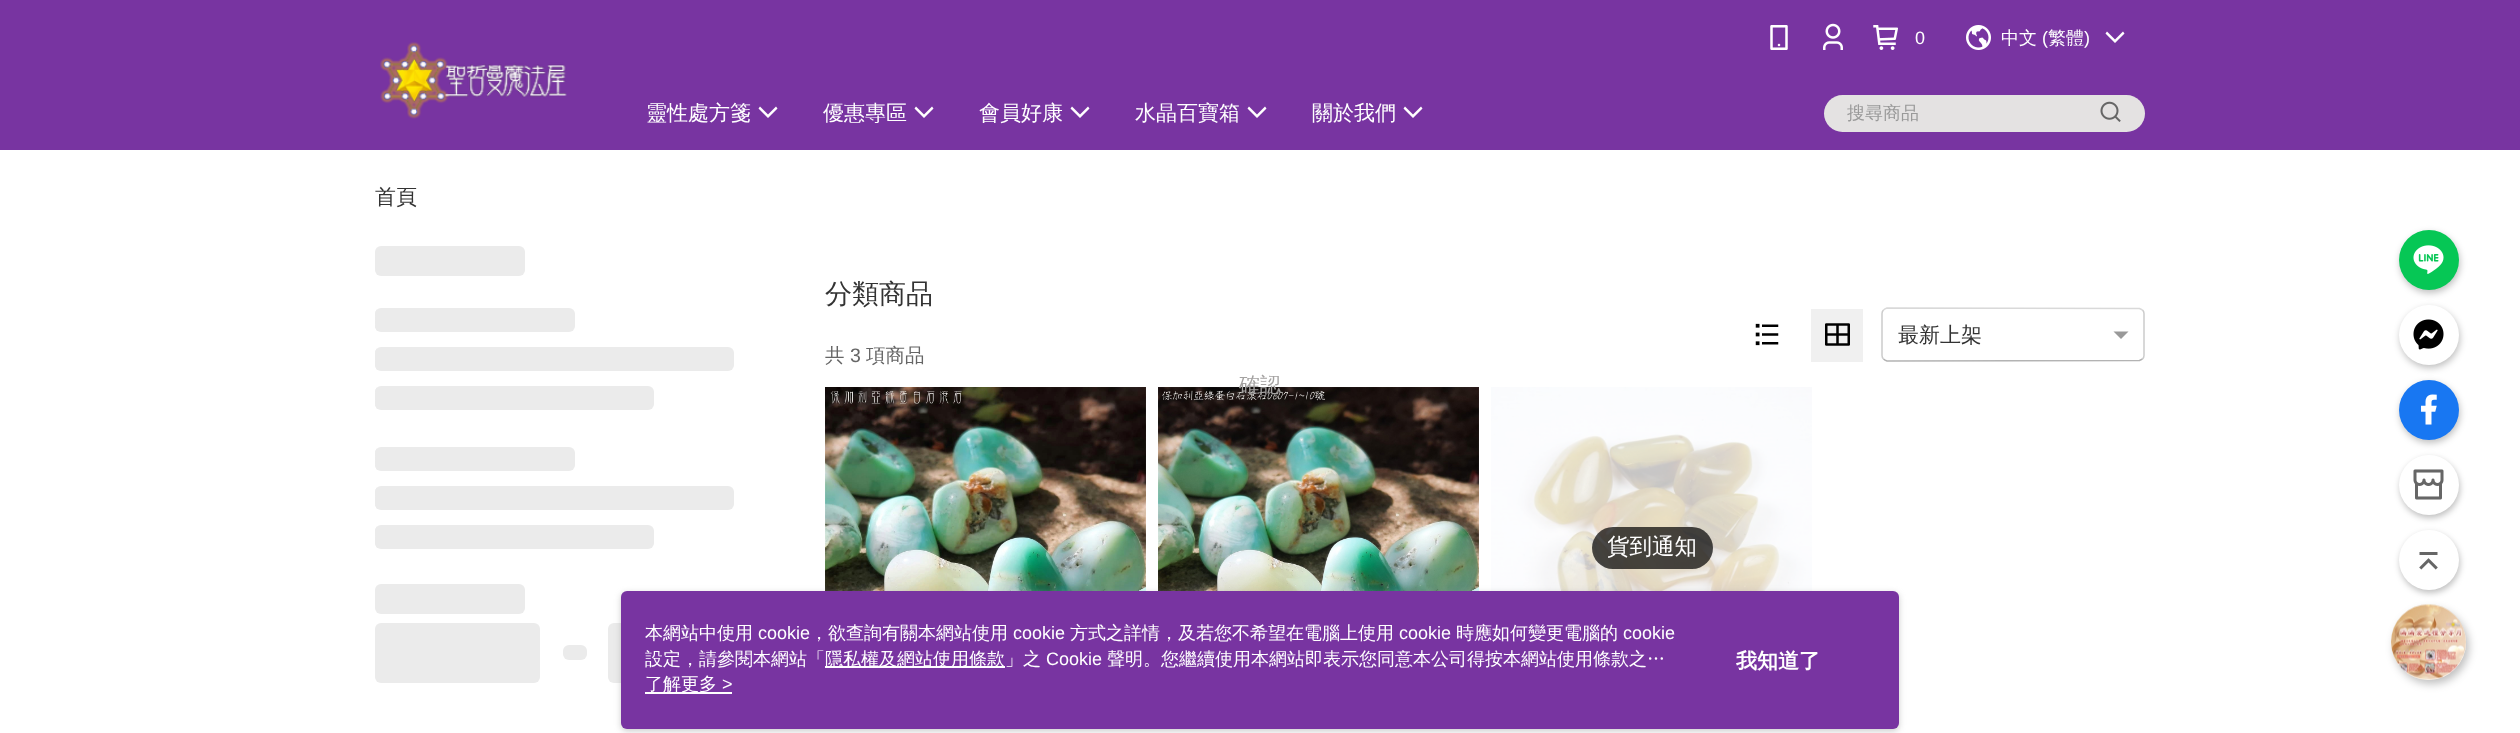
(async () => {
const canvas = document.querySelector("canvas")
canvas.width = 2520
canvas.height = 733
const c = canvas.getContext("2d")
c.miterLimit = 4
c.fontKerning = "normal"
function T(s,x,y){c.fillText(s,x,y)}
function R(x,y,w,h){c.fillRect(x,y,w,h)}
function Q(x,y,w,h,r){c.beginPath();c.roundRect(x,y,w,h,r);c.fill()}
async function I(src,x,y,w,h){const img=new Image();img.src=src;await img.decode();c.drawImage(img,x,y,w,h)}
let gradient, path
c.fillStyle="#fff"
R(0,0,2520,733)
c.fillStyle="#7834a1"
R(0,0,2520,150)
await I("1.png",380,42,187,77)
await I("2.png",1770,25,18,25)
await I("3.png",1823,23,20,27)
await I("4.png",1873,25,25,25)
c.font="18px Liberation Sans"
c.fillStyle="#fff"
T("0",1915,44)
await I("5.png",1966,25,25,25)
c.font="500 18px WenQuanYi Zen Hei"
T("中文",2001,44)
c.font="18px Liberation Sans"
T("(",2042,44)
c.font="500 18px WenQuanYi Zen Hei"
T("繁體",2048,44)
c.font="18px Liberation Sans"
T(")",2084,44)
path = new Path2D("M2107 31.5l-1.5 2l9.5 9.5l9.5-9.5l-1.5-2l-8 8z")
c.fill(path)
c.font="500 21px WenQuanYi Zen Hei"
T("靈性處方箋",646,120)
path = new Path2D("M760 106.5l-1.5 2l9.5 9.5l9.5-9.5l-1.5-2l-8 8z")
c.fill(path)
T("優惠專區",823,120)
path = new Path2D("M916 106.5l-1.5 2l9.5 9.5l9.5-9.5l-1.5-2l-8 8z")
c.fill(path)
T("會員好康",979,120)
path = new Path2D("M1072 106.5l-1.5 2l9.5 9.5l9.5-9.5l-1.5-2l-8 8z")
c.fill(path)
T("水晶百寶箱",1135,120)
path = new Path2D("M1249 106.5l-1.5 2l9.5 9.5l9.5-9.5l-1.5-2l-8 8z")
c.fill(path)
T("關於我們",1312,120)
path = new Path2D("M1405 106.5l-1.5 2l9.5 9.5l9.5-9.5l-1.5-2l-8 8z")
c.fill(path)
c.fillStyle="#e4e2e2"
Q(1824,95,321,37,18.5)
c.font="500 18px WenQuanYi Zen Hei"
c.fillStyle="#999"
T("搜尋商品",1847,119)
await I("6.png",2100,101,21,21)
c.fillStyle="#00000040"
c.filter="blur(3.5px)"
c.beginPath()
c.roundRect(2400,233,60,60,30)
c.fill()
c.filter="none"
c.fillStyle="#06c755"
c.beginPath()
c.arc(2429,260,30,0,7)
c.fill()
await I("7.png",2413,245,31,29)
c.fillStyle="#00000040"
c.filter="blur(3.5px)"
c.beginPath()
c.roundRect(2400,308,60,60,30)
c.fill()
c.filter="none"
c.fillStyle="#fff"
c.beginPath()
c.arc(2429,335,30,0,7)
c.fill()
await I("8.png",2413,319,31,31)
c.fillStyle="#00000040"
c.filter="blur(3.5px)"
c.beginPath()
c.roundRect(2400,383,60,60,30)
c.fill()
c.filter="none"
c.fillStyle="#1877f2"
c.beginPath()
c.arc(2429,410,30,0,7)
c.fill()
await I("9.png",2421,394,16,31)
c.fillStyle="#00000040"
c.filter="blur(3px)"
c.beginPath()
c.roundRect(2400,458,60,60,30)
c.fill()
c.filter="none"
c.fillStyle="#fff"
c.beginPath()
c.arc(2429,485,30,0,7)
c.fill()
await I("10.png",2413,469,31,31)
c.fillStyle="#00000040"
c.filter="blur(3px)"
c.beginPath()
c.roundRect(2400,533,60,60,30)
c.fill()
c.filter="none"
c.fillStyle="#fff"
c.beginPath()
c.arc(2429,560,30,0,7)
c.fill()
await I("11.png",2419,552,19,18)
c.fillStyle="#00000040"
c.filter="blur(4px)"
c.beginPath()
c.roundRect(2394,609,75,75,37.5)
c.fill()
c.filter="none"
c.fillStyle="#fff"
c.beginPath()
c.arc(2428.5,642.5,37.5,0,7)
c.fill()
await I("12.png",2391,604,75,76)
c.font="500 21px WenQuanYi Zen Hei"
c.fillStyle="#333"
T("首頁",375,204)
c.fillStyle="#ebebeb"
Q(375,246,150,30,6)
Q(375,308,200,24,6)
c.save()
c.beginPath()
c.roundRect(375,308,200,24,6)
c.clip()
gradient = c.createLinearGradient(176,320,376,320)
gradient.addColorStop(0,"#ebebeb")
gradient.addColorStop(.5,"#f5f5f5")
gradient.addColorStop(1,"#ebebeb")
c.fillStyle = gradient
R(375,308,2,24)
c.restore()
Q(375,347,359,24,6)
c.save()
c.beginPath()
c.roundRect(375,347,359,24,6)
c.clip()
gradient = c.createLinearGradient(17,359,376,359)
gradient.addColorStop(0,"#ebebeb")
gradient.addColorStop(.5,"#f5f5f5")
gradient.addColorStop(1,"#ebebeb")
c.fillStyle = gradient
R(375,347,2,24)
c.restore()
Q(375,386,279,24,6)
c.save()
c.beginPath()
c.roundRect(375,386,279,24,6)
c.clip()
gradient = c.createLinearGradient(97,398,376,398)
gradient.addColorStop(0,"#ebebeb")
gradient.addColorStop(.5,"#f5f5f5")
gradient.addColorStop(1,"#ebebeb")
c.fillStyle = gradient
R(375,386,2,24)
c.restore()
Q(375,447,200,24,6)
c.save()
c.beginPath()
c.roundRect(375,447,200,24,6)
c.clip()
gradient = c.createLinearGradient(176,459,376,459)
gradient.addColorStop(0,"#ebebeb")
gradient.addColorStop(.5,"#f5f5f5")
gradient.addColorStop(1,"#ebebeb")
c.fillStyle = gradient
R(375,447,2,24)
c.restore()
Q(375,486,359,24,6)
c.save()
c.beginPath()
c.roundRect(375,486,359,24,6)
c.clip()
gradient = c.createLinearGradient(17,498,376,498)
gradient.addColorStop(0,"#ebebeb")
gradient.addColorStop(.5,"#f5f5f5")
gradient.addColorStop(1,"#ebebeb")
c.fillStyle = gradient
R(375,486,2,24)
c.restore()
Q(375,525,279,24,6)
c.save()
c.beginPath()
c.roundRect(375,525,279,24,6)
c.clip()
gradient = c.createLinearGradient(97,537,376,537)
gradient.addColorStop(0,"#ebebeb")
gradient.addColorStop(.5,"#f5f5f5")
gradient.addColorStop(1,"#ebebeb")
c.fillStyle = gradient
R(375,525,2,24)
c.restore()
Q(375,584,150,30,6)
Q(375,623,165,60,6)
Q(563,645,24,15,6)
Q(608,623,165,60,6)
c.font="500 27px WenQuanYi Zen Hei"
c.fillStyle="#333"
T("分類商品",825,303)
await I("13.png",1755,323,24,23)
c.fillStyle="#f0f0f0"
R(1811,309,52,53)
await I("14.png",1825,323,25,23)
path = new Path2D("M1883.5 310c1-1 2-1.5 3.5-2l252.5 .5l3 1.5")
c.strokeStyle="#d9d9d9"
c.lineWidth=1.5
c.stroke(path)
path = new Path2D("M2142.5 310c1 1 1.5 2 1.5 3.5v42c0 1.5-.5 2.5-1.5 3.5")
c.strokeStyle="#ccc"
c.stroke(path)
path = new Path2D("M2142.5 359l-3 1.5l-252.5 .5c-1.5-.5-2.5-1-3.5-2")
c.strokeStyle="#b3b3b3"
c.stroke(path)
path = new Path2D("M1883.5 359c-1-1-1.5-2-1.5-3.5v-42c0-1.5 .5-2.5 1.5-3.5")
c.strokeStyle="#ccc"
c.stroke(path)
c.font="500 21px WenQuanYi Zen Hei"
c.fillStyle="#333"
T("最新上架",1898,342)
c.fillStyle="#999"
path = new Path2D("M2113.5 331.5h15l-7.5 7.5z")
c.fill(path)
c.font="500 19.5px WenQuanYi Zen Hei"
c.fillStyle="#666"
T("共",825,362)
c.font="19.5px Liberation Sans"
T("3",850,362)
c.font="500 19.5px WenQuanYi Zen Hei"
T("項商品",866,362)
await I("15.png",825,387,321,204)
await I("16.png",1158,387,321,204)
await I("17.png",1491,387,321,204)
c.fillStyle="#000000b3"
Q(1592,527,121,42,21)
c.save()
c.beginPath()
c.rect(1608,534,90,29)
c.clip()
c.font="500 22.5px WenQuanYi Zen Hei"
c.fillStyle="#fff"
T("貨到通知",1607,554)
c.restore()
c.font="500 21px WenQuanYi Zen Hei"
c.fillStyle="#a4a2a1"
T("確認",1239,392)
c.fillStyle="#97979780"
c.filter="blur(3px)"
c.beginPath()
c.roundRect(621,593,1278,138,6)
c.fill()
c.filter="none"
c.fillStyle="#7834a1"
Q(621,591,1278,138,6)
c.font="500 18px WenQuanYi Zen Hei"
c.fillStyle="#fff"
T("本網站中使用",645,639)
c.font="18px Liberation Sans"
T("cookie",758,639)
c.font="500 18px WenQuanYi Zen Hei"
T("，欲查詢有關本網站使用",810,639)
c.font="18px Liberation Sans"
T("cookie",1013,639)
c.font="500 18px WenQuanYi Zen Hei"
T("方式之詳情，及若您不希望在電腦上使用",1070,639)
c.font="18px Liberation Sans"
T("cookie",1399,639)
c.font="500 18px WenQuanYi Zen Hei"
T("時應如何變更電腦的",1456,639)
c.font="18px Liberation Sans"
T("cookie",1623,639)
c.font="500 18px WenQuanYi Zen Hei"
T("設定，請參閱本網站「",645,665)
R(825,666,180,2)
T("隱私權及網站使用條款」之",825,665)
c.font="18px Liberation Sans"
T("Cookie",1046,665)
c.font="500 18px WenQuanYi Zen Hei"
T("聲明。您繼續使用本網站即表示您同意本公司得按本網站使用條款之…",1107,665)
R(645,692,87,2)
T("了解更多",645,690)
c.font="18px Liberation Sans"
T(">",722,690)
c.font="bold 21px WenQuanYi Zen Hei"
T("我知道了",1736,668)
})()
